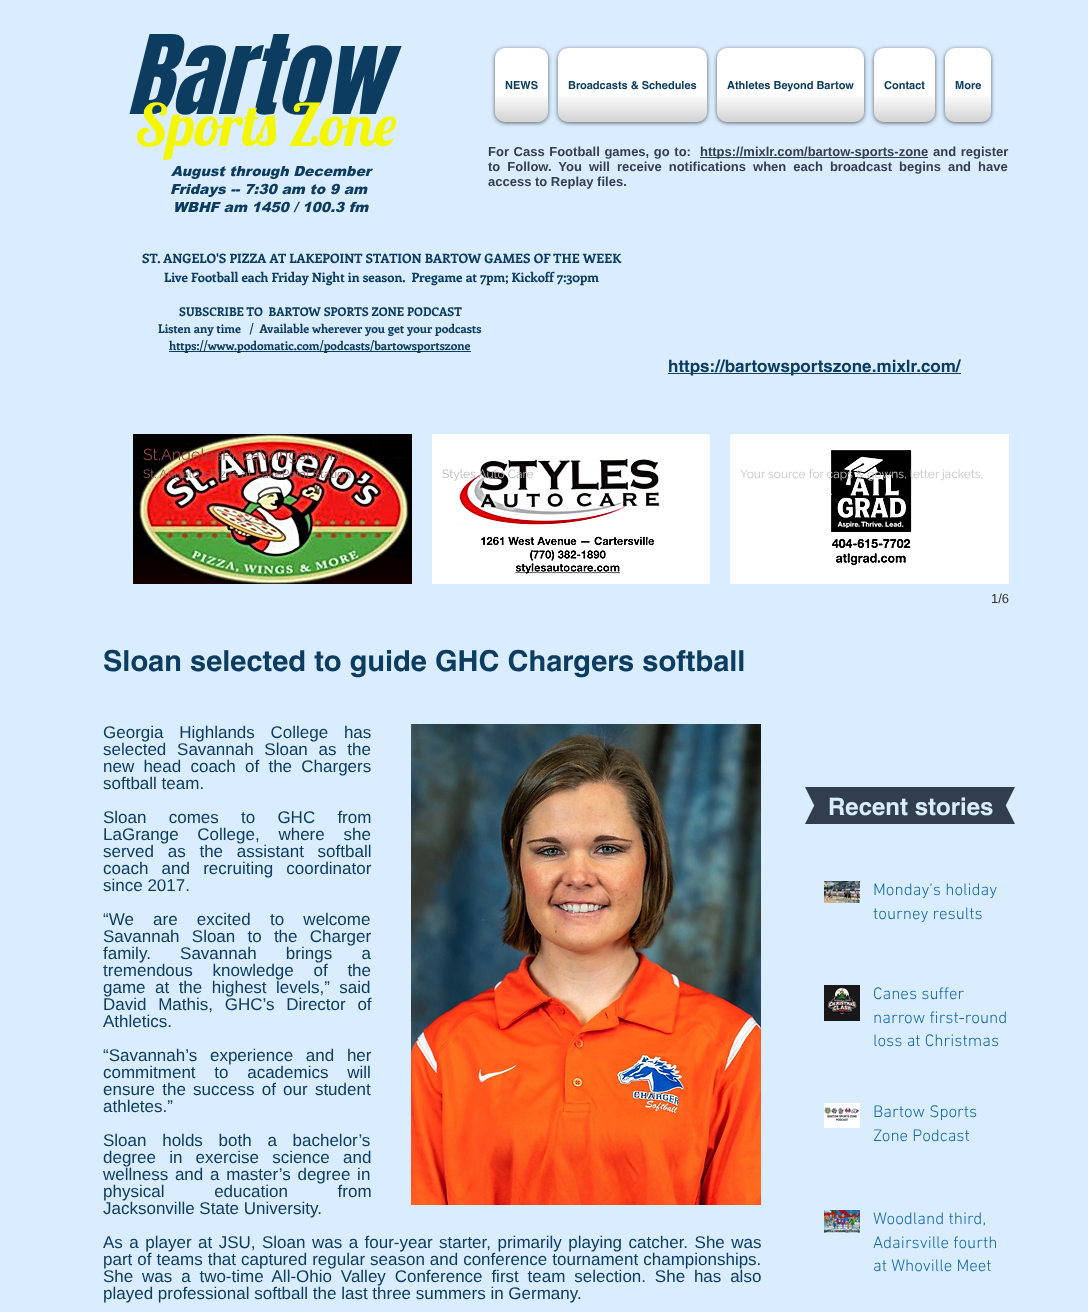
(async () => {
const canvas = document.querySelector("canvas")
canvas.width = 1088
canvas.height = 1312
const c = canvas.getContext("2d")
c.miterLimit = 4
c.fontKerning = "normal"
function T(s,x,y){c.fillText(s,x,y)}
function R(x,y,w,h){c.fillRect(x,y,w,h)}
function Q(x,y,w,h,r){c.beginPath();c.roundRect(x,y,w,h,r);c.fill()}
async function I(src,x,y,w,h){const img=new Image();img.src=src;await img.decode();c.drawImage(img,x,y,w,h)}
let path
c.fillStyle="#daedff"
R(0,0,1088,1312)
c.font="italic 93px Anton"
c.fillStyle="#0c3c60"
T("Bartow",126,114)
c.fillStyle="#00000099"
c.filter="blur(2px)"
c.beginPath()
c.roundRect(495,49,53,74,10)
c.fill()
c.filter="none"
c.fillStyle="#fff"
Q(495,48,53,74,10)
await I("1.png",495,96,53,26)
c.font="bold 11px helvetica"
c.fillStyle="#0c3c60"
T("NEWS",505,89)
c.fillStyle="#00000099"
c.filter="blur(2px)"
c.beginPath()
c.roundRect(558,49,149,74,10)
c.fill()
c.filter="none"
c.fillStyle="#fff"
Q(558,48,149,74,10)
await I("2.png",558,96,149,26)
c.fillStyle="#0c3c60"
T("Broadcasts & Schedules",568,89)
c.fillStyle="#00000099"
c.filter="blur(2px)"
c.beginPath()
c.roundRect(717,49,147,74,10)
c.fill()
c.filter="none"
c.fillStyle="#fff"
Q(717,48,147,74,10)
await I("3.png",717,96,147,26)
c.fillStyle="#0c3c60"
T("Athletes Beyond Bartow",727,89)
c.fillStyle="#00000099"
c.filter="blur(2px)"
c.beginPath()
c.roundRect(874,49,61,74,10)
c.fill()
c.filter="none"
c.fillStyle="#fff"
Q(874,48,61,74,10)
await I("4.png",874,96,61,26)
c.fillStyle="#0c3c60"
T("Contact",884,89)
c.fillStyle="#00000099"
c.filter="blur(2px)"
c.beginPath()
c.roundRect(945,49,46,74,10)
c.fill()
c.filter="none"
c.fillStyle="#fff"
Q(945,48,46,74,10)
await I("5.png",945,96,46,26)
c.fillStyle="#0c3c60"
T("More",955,89)
c.font="58px Lobster"
c.fillStyle="#f3f705"
T("Sports Zone",135,146)
c.font="italic 900 14px arial"
c.fillStyle="#0c3c60"
T("August through December",171,176)
T("Fridays -- 7:30 am to 9 am",170,194)
T("WBHF am 1450 / 100.3 fm",173,212)
c.wordSpacing="1px"
c.font="bold 13px Liberation Sans"
c.fillStyle="#313e4f"
T("For Cass Football games, go to:",488,156)
R(700,157,228,1)
c.wordSpacing="0px"
T("https://mixlr.com/bartow-sports-zone",700,156)
c.wordSpacing="1px"
T("and register",933,156)
c.wordSpacing="3.4px"
T("to Follow. You will receive notifications when each broadcast begins and have",488,171)
c.wordSpacing="0px"
T("access to Replay files.",488,186)
c.font="bold 13px Enriqueta"
c.fillStyle="#0c3c60"
T("ST. ANGELO'S PIZZA AT LAKEPOINT STATION BARTOW GAMES OF THE WEEK",142,263)
T("Live Football each Friday Night in season.  Pregame at 7pm; Kickoff 7:30pm",164,282)
c.font="bold 12px Enriqueta"
T("SUBSCRIBE TO  BARTOW SPORTS ZONE PODCAST",179,316)
T("Listen any time   /  Available wherever you get your podcasts",158,333)
R(169,351,302,1)
T("https://www.podomatic.com/podcasts/bartowsportszone",169,350)
R(668,373,293,1)
c.font="bold 17px helvetica"
T("https://bartowsportszone.mixlr.com/",668,372)
await I("6.png",133,434,279,150)
c.font="16px Raleway"
c.fillStyle="#964740"
T("St.AngelosPizzaWingsMore",143,460)
c.font="12px Raleway"
c.fillStyle="#93625e"
T("St. Angelo's Pizza at LakePoint Station",143,478)
c.fillStyle="#e52923"
T(".",208,512)
await I("7.png",432,434,278,150)
c.fillStyle="#bab7b7"
T("Styles Auto Care",442,478)
await I("8.png",730,434,279,150)
c.fillStyle="#c7c7c7"
T("Your source for caps & gowns, letter jackets,",740,478)
c.fillStyle="#fefefe"
T(".",830,495)
c.font="13px Liberation Sans"
c.fillStyle="#2f2e2e"
T("1/6",991,603)
c.font="bold 29px helvetica"
c.fillStyle="#0c3c60"
T("Sloan selected to guide GHC Chargers softball",103,671)
c.wordSpacing="11px"
c.font="17px Liberation Sans"
T("Georgia Highlands College has",103,738)
c.wordSpacing="6px"
T("selected Savannah Sloan as the",103,755)
c.wordSpacing="4.5px"
T("new head coach of the Chargers",103,772)
c.wordSpacing="0px"
T("softball team.",103,789)
await I("9.png",411,724,350,481)
c.wordSpacing="17.5px"
T("Sloan comes to GHC from",103,823)
c.wordSpacing="14px"
T("LaGrange College, where she",103,840)
c.wordSpacing="9px"
T("served as the assistant softball",103,857)
c.wordSpacing="8.5px"
T("coach and recruiting coordinator",103,874)
c.wordSpacing="0px"
T("since 2017.",103,891)
c.wordSpacing="14.5px"
T("“We are excited to welcome",103,925)
c.wordSpacing="7.5px"
T("Savannah Sloan to the Charger",103,942)
c.wordSpacing="24.5px"
T("family. Savannah brings a",103,959)
c.wordSpacing="15px"
T("tremendous knowledge of the",103,976)
c.wordSpacing="4.75px"
T("game at the highest levels,” said",103,993)
c.wordSpacing="7px"
T("David Mathis, GHC’s Director of",103,1010)
c.wordSpacing="0px"
T("Athletics.",103,1027)
c.wordSpacing="8px"
T("“Savannah’s experience and her",103,1061)
c.wordSpacing="14px"
T("commitment to academics will",103,1078)
c.wordSpacing="2.5px"
T("ensure the success of our student",103,1095)
c.wordSpacing="0px"
T("athletes.”",103,1112)
c.wordSpacing="11px"
T("Sloan holds both a bachelor’s",103,1146)
c.wordSpacing="8.5px"
T("degree in exercise science and",103,1163)
c.wordSpacing="2px"
T("wellness and a master’s degree in",103,1180)
c.wordSpacing="45px"
T("physical education from",103,1197)
c.wordSpacing="0px"
T("Jacksonville State University.",103,1214)
c.wordSpacing="1.75px"
T("As a player at JSU, Sloan was a four-year starter, primarily playing catcher. She was",103,1248)
c.wordSpacing="0.25px"
T("part of teams that captured regular season and conference tournament championships.",103,1265)
c.wordSpacing="4.1px"
T("She was a two-time All-Ohio Valley Conference first team selection. She has also",103,1282)
c.wordSpacing="0px"
T("played professional softball the last three summers in Germany.",103,1299)
c.save()
c.beginPath()
c.rect(805,787,106,19)
c.clip()
c.fillStyle="#313e4f"
path = new Path2D("M805 787h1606l-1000 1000h-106z")
c.fill(path)
c.restore()
c.save()
c.beginPath()
c.rect(910,787,105,19)
c.clip()
c.fillStyle="#313e4f"
path = new Path2D("M-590 787h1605l-500 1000h-105z")
c.fill(path)
c.restore()
c.save()
c.beginPath()
c.rect(805,805,106,19)
c.clip()
c.fillStyle="#313e4f"
path = new Path2D("M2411 824h-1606l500-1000h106z")
c.fill(path)
c.restore()
c.save()
c.beginPath()
c.rect(910,805,105,19)
c.clip()
c.fillStyle="#313e4f"
path = new Path2D("M1015 824h-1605l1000-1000h105z")
c.fill(path)
c.restore()
c.font="bold 24px helvetica"
c.fillStyle="#daedff"
T("Recent stories",828,815)
await I("10.png",824,881,36,22)
c.font="300 17px 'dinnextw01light'"
c.fillStyle="#1468a8"
T("Monday’s holiday",873,895)
T("tourney results",873,919)
await I("11.png",824,985,36,36)
T("Canes suffer",873,999)
T("narrow first-round",873,1023)
T("loss at Christmas",873,1046)
await I("12.png",824,1103,36,25)
await I("13.png",824,1104,36,21)
T("Bartow Sports",873,1117)
T("Zone Podcast",873,1141)
await I("14.png",824,1210,36,23)
T("Woodland third,",873,1224)
T("Adairsville fourth",873,1248)
T("at Whoville Meet",873,1271)
})()
